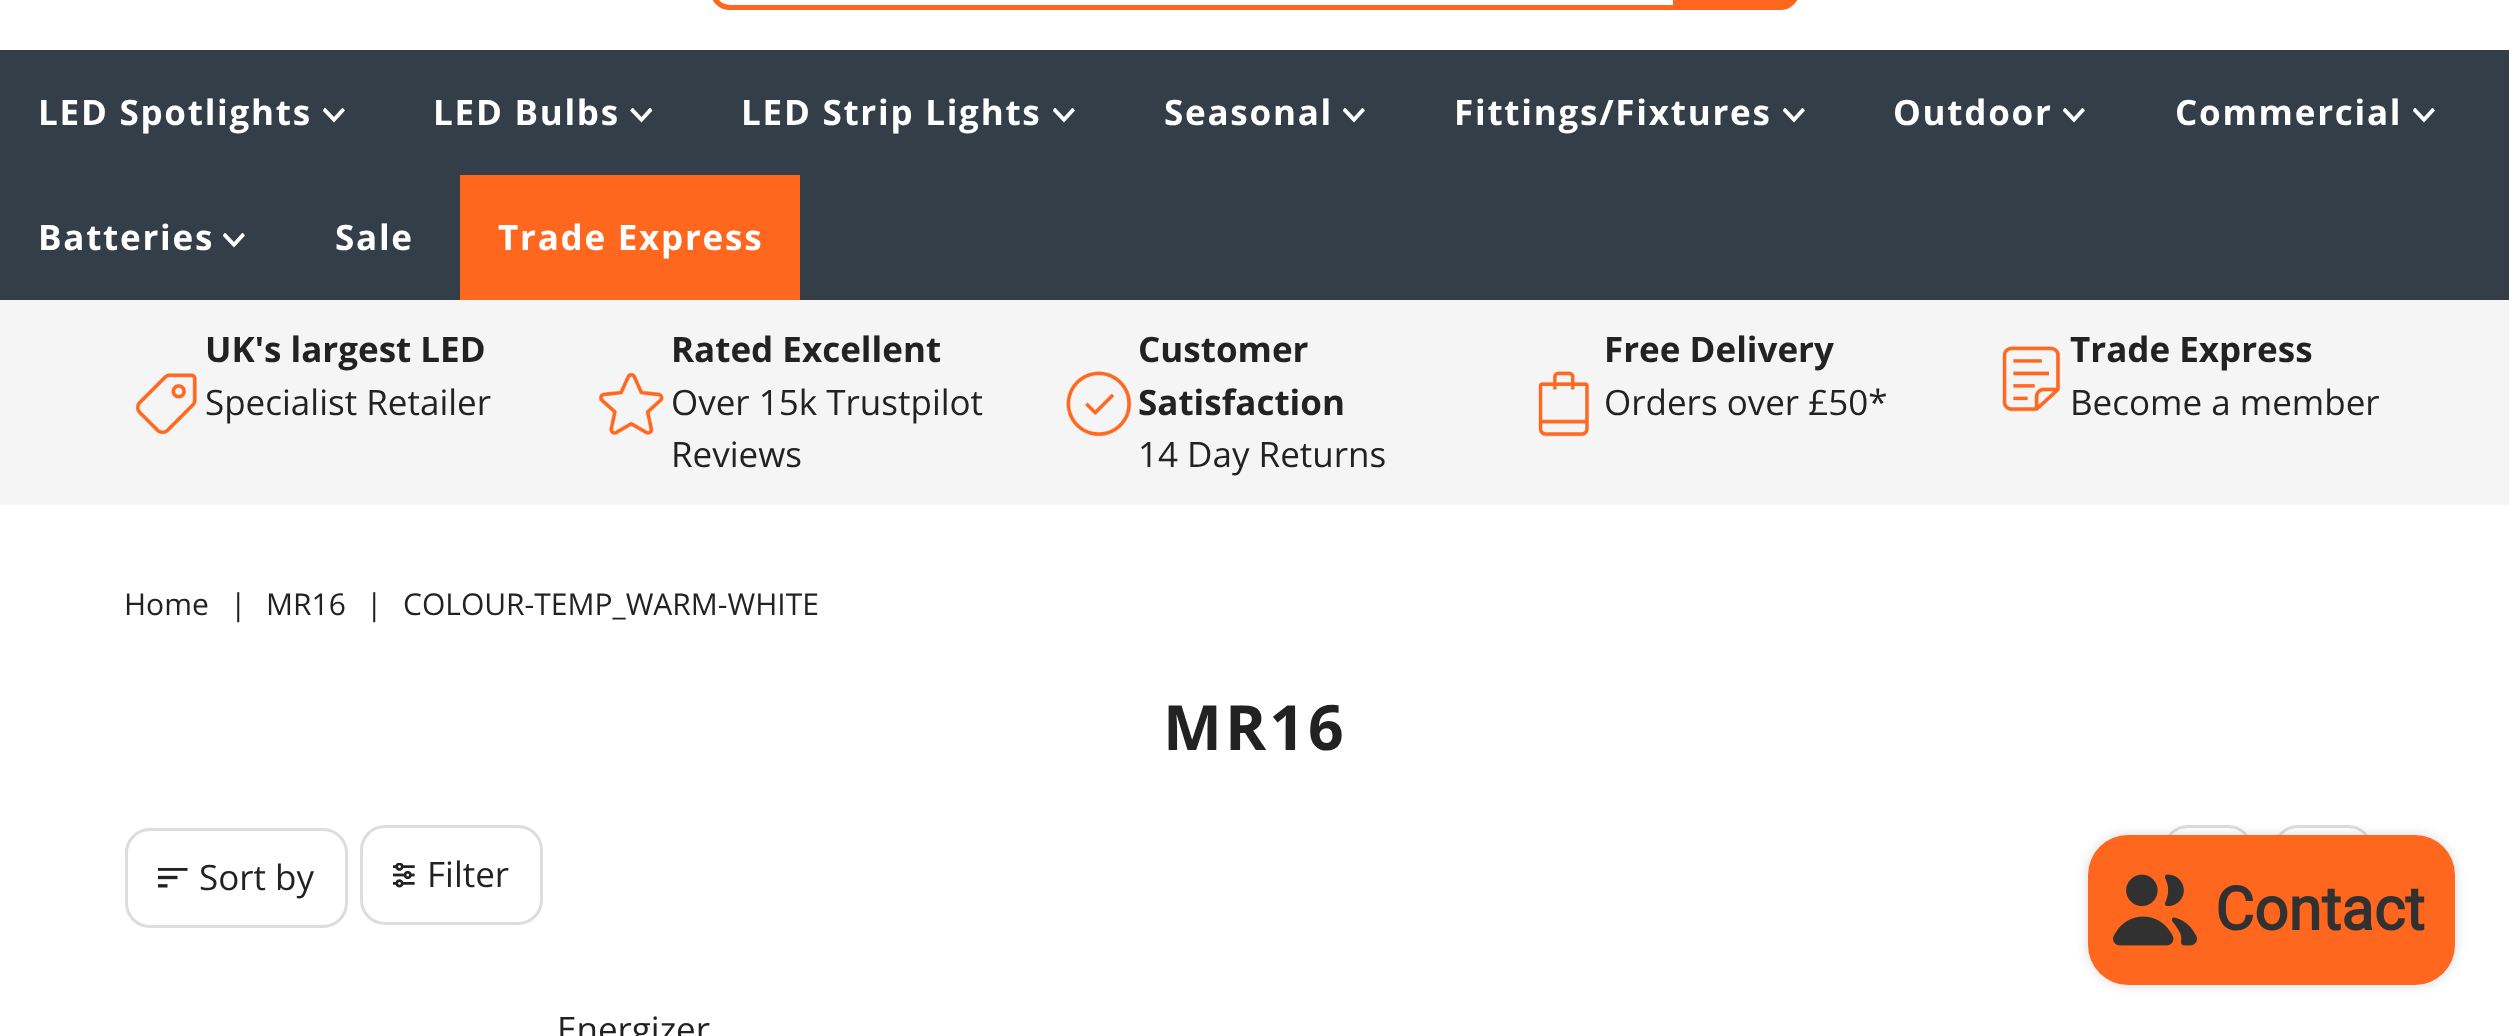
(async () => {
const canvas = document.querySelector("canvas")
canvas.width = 2509
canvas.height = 1036
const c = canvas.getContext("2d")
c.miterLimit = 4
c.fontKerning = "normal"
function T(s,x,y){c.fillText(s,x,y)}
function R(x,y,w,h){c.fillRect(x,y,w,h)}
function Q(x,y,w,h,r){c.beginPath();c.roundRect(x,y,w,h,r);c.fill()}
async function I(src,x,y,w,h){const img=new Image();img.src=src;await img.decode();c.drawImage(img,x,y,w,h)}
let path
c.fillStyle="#fff"
R(0,0,2509,1036)
c.beginPath()
c.roundRect(712.5,-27.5,1085,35,22.5)
c.strokeStyle="#ff671f"
c.lineWidth=5
c.stroke()
c.fillStyle="#ff671f"
path = new Path2D("M1674.5-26.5h98.5c13 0 23.5 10.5 23.5 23.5v-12c0 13-10.5 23.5-23.5 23.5h-98.5z")
c.fill(path)
c.lineWidth=3
c.stroke(path)
c.fillStyle="#333e48"
R(0,50,2509,250)
c.letterSpacing="1.75px"
c.font="bold 35px Open Sans"
c.fillStyle="#fff"
T("LED Spotlights",38,125)
c.save()
c.beginPath()
c.rect(323,108,22,15)
c.clip()
path = new Path2D("M342.5 107.5l-8.5 9.5l-9-9.5l-2.5 3l11.5 12l11-12z")
c.fill(path)
c.restore()
T("LED Bulbs",433,125)
c.save()
c.beginPath()
c.rect(630,108,23,15)
c.clip()
path = new Path2D("M650 107.5l-8.5 9.5l-9-9.5l-2.5 3l11.5 12l11-12z")
c.fill(path)
c.restore()
T("LED Strip Lights",741,125)
c.save()
c.beginPath()
c.rect(1053,108,22,15)
c.clip()
path = new Path2D("M1072.5 107.5l-8.5 9.5l-9-9.5l-2.5 3l11.5 12l11-12z")
c.fill(path)
c.restore()
T("Seasonal",1164,125)
c.save()
c.beginPath()
c.rect(1343,108,22,15)
c.clip()
path = new Path2D("M1362.5 107.5l-8.5 9.5l-9-9.5l-2.5 3l11.5 12l11-12z")
c.fill(path)
c.restore()
T("Fittings/Fixtures",1454,125)
c.save()
c.beginPath()
c.rect(1783,108,22,15)
c.clip()
path = new Path2D("M1802.5 107.5l-8.5 9.5l-9-9.5l-2.5 3l11.5 12l11-12z")
c.fill(path)
c.restore()
T("Outdoor",1893,125)
c.save()
c.beginPath()
c.rect(2063,108,22,15)
c.clip()
path = new Path2D("M2082.5 107.5l-8.5 9.5l-9-9.5l-2.5 3l11.5 12l11-12z")
c.fill(path)
c.restore()
T("Commercial",2175,125)
c.save()
c.beginPath()
c.rect(2413,108,22,15)
c.clip()
path = new Path2D("M2432.5 107.5l-8.5 9.5l-9-9.5l-2.5 3l11.5 12l11-12z")
c.fill(path)
c.restore()
T("Batteries",38,250)
c.save()
c.beginPath()
c.rect(223,233,22,15)
c.clip()
path = new Path2D("M242.5 232.5l-8.5 9.5l-9-9.5l-2.5 3l11.5 12l11-12z")
c.fill(path)
c.restore()
T("Sale",335,250)
c.fillStyle="#ff671f"
R(460,175,340,125)
c.fillStyle="#fff"
T("Trade Express",498,250)
c.fillStyle="#f5f5f5"
R(0,300,2509,205)
await I("1.png",135,373,62,62)
c.letterSpacing="0px"
c.fillStyle="#222"
T("UK's largest LED",205,362)
c.font="35px Open Sans"
T("Specialist Retailer",205,415)
await I("2.png",598,372,66,63)
c.font="bold 35px Open Sans"
T("Rated Excellent",671,362)
c.font="35px Open Sans"
T("Over 15k Trustpilot",671,415)
T("Reviews",671,467)
await I("3.png",1066,371,66,66)
c.font="bold 35px Open Sans"
T("Customer",1138,362)
T("Satisfaction",1138,415)
c.font="35px Open Sans"
T("14 Day Returns",1138,467)
await I("4.png",1538,371,51,66)
c.font="bold 35px Open Sans"
T("Free Delivery",1604,362)
c.font="35px Open Sans"
T("Orders over £50*",1604,415)
await I("5.png",2002,346,59,66)
c.font="bold 35px Open Sans"
T("Trade Express",2070,362)
c.font="35px Open Sans"
T("Become a member",2070,415)
c.font="30px Open Sans"
T("Home",124,615)
T("|",230,615)
T("MR16",266,615)
T("|",366,615)
T("COLOUR-TEMP_WARM-WHITE",403,615)
c.letterSpacing="3px"
c.font="bold 62.5px Open Sans"
T("MR16",1163,750)
c.beginPath()
c.roundRect(126.5,829.5,220,97,23.5)
c.strokeStyle="#ddd"
c.stroke()
await I("6.png",158,868,30,20)
c.letterSpacing="0px"
c.font="35px Open Sans"
T("Sort by",199,890)
c.beginPath()
c.roundRect(361.5,826.5,180,97,23.5)
c.stroke()
await I("7.png",393,863,22,25)
T("Filter",427,887)
c.beginPath()
c.roundRect(2164.5,826.5,87,87,23.5)
c.stroke()
c.beginPath()
c.roundRect(2274.5,826.5,97,87,23.5)
c.stroke()
T("Energizer",557,1042)
c.fillStyle="#00000026"
c.filter="blur(6px)"
c.beginPath()
c.roundRect(2088,835,367,150,40)
c.fill()
c.filter="none"
c.fillStyle="#ff671f"
Q(2088,835,367,150,40)
await I("8.png",2113,874,84,72)
c.font="bold 60px Roboto"
c.fillStyle="#313131"
T("Contact",2215,930)
})()
